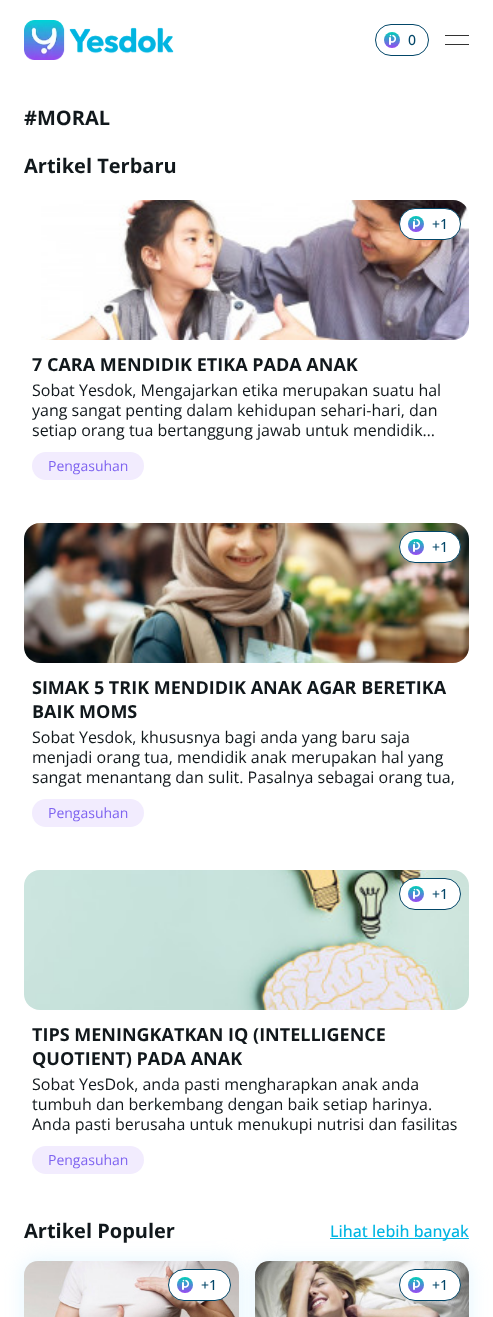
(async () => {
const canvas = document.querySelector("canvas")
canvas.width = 493
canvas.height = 1317
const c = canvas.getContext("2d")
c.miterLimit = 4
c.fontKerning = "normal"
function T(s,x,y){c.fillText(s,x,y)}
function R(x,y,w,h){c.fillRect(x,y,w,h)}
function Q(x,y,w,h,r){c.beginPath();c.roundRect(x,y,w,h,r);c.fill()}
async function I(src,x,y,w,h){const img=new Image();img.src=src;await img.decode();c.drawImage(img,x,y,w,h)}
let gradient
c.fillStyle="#fff"
R(0,0,493,1317)
await I("1.png",24,20,150,40)
c.beginPath()
c.roundRect(375.5,24.5,53,31,15.5)
c.strokeStyle="#024668"
c.stroke()
gradient = c.createLinearGradient(392,32,392,48)
gradient.addColorStop(0,"#00cfb6")
gradient.addColorStop(1,"#9848f2")
c.fillStyle = gradient
c.beginPath()
c.arc(392,40,8,0,7)
c.fill()
await I("2.png",389,34,8,11)
c.font="500 14px Open Sans"
c.fillStyle="#024668"
T("0",408,45)
c.fillStyle="#333"
R(445,35,24,1)
R(445,44,24,1)
c.font="bold 20px Open Sans"
c.fillStyle="#11181c"
T("#MORAL",24,125)
T("Artikel Terbaru",24,173)
await I("3.png",41,200,428,140)
c.fillStyle="#fff"
c.beginPath()
c.roundRect(399.5,208.5,61,31,15.5)
c.fill()
c.stroke()
gradient = c.createLinearGradient(416,216,416,232)
gradient.addColorStop(0,"#00cfb6")
gradient.addColorStop(1,"#9848f2")
c.fillStyle = gradient
c.beginPath()
c.arc(416,224,8,0,7)
c.fill()
await I("2.png",413,218,8,11)
c.font="500 14px Open Sans"
c.fillStyle="#024668"
T("+1",432,229)
c.font="bold 18px Open Sans"
c.fillStyle="#11181c"
T("7 CARA MENDIDIK ETIKA PADA ANAK",32,371)
c.font="16px Open Sans"
T("Sobat Yesdok, Mengajarkan etika merupakan suatu hal",32,396)
T("yang sangat penting dalam kehidupan sehari-hari, dan",32,416)
T("setiap orang tua bertanggung jawab untuk mendidik…",32,436)
c.fillStyle="#f2ecfe"
Q(32,452,112,28,14)
c.font="14px Open Sans"
c.fillStyle="#7e63f0"
T("Pengasuhan",48,471)
await I("4.png",24,523,445,140)
c.fillStyle="#fff"
c.beginPath()
c.roundRect(399.5,531.5,61,31,15.5)
c.fill()
c.stroke()
gradient = c.createLinearGradient(416,539,416,555)
gradient.addColorStop(0,"#00cfb6")
gradient.addColorStop(1,"#9848f2")
c.fillStyle = gradient
c.beginPath()
c.arc(416,547,8,0,7)
c.fill()
await I("2.png",413,541,8,11)
c.font="500 14px Open Sans"
c.fillStyle="#024668"
T("+1",432,552)
c.font="bold 18px Open Sans"
c.fillStyle="#11181c"
T("SIMAK 5 TRIK MENDIDIK ANAK AGAR BERETIKA",32,694)
T("BAIK MOMS",32,718)
c.font="16px Open Sans"
T("Sobat Yesdok, khususnya bagi anda yang baru saja",32,743)
T("menjadi orang tua, mendidik anak merupakan hal yang",32,763)
T("sangat menantang dan sulit. Pasalnya sebagai orang tua,",32,783)
c.fillStyle="#f2ecfe"
Q(32,799,112,28,14)
c.font="14px Open Sans"
c.fillStyle="#7e63f0"
T("Pengasuhan",48,818)
await I("5.png",24,870,445,140)
c.fillStyle="#fff"
c.beginPath()
c.roundRect(399.5,878.5,61,31,15.5)
c.fill()
c.stroke()
gradient = c.createLinearGradient(416,886,416,902)
gradient.addColorStop(0,"#00cfb6")
gradient.addColorStop(1,"#9848f2")
c.fillStyle = gradient
c.beginPath()
c.arc(416,894,8,0,7)
c.fill()
await I("2.png",413,888,8,11)
c.font="500 14px Open Sans"
c.fillStyle="#024668"
T("+1",432,899)
c.font="bold 18px Open Sans"
c.fillStyle="#11181c"
T("TIPS MENINGKATKAN IQ (INTELLIGENCE",32,1041)
T("QUOTIENT) PADA ANAK",32,1065)
c.font="16px Open Sans"
T("Sobat YesDok, anda pasti mengharapkan anak anda",32,1090)
T("tumbuh dan berkembang dengan baik setiap harinya.",32,1110)
T("Anda pasti berusaha untuk menukupi nutrisi dan fasilitas",32,1130)
c.fillStyle="#f2ecfe"
Q(32,1146,112,28,14)
c.font="14px Open Sans"
c.fillStyle="#7e63f0"
T("Pengasuhan",48,1165)
c.font="bold 20px Open Sans"
c.fillStyle="#11181c"
T("Artikel Populer",24,1238)
c.fillStyle="#00b5e2"
R(330,1238,139,1)
c.font="500 16px Open Sans"
T("Lihat lebih banyak",330,1237)
c.fillStyle="#ceeeff99"
c.filter="blur(10px)"
c.beginPath()
c.roundRect(24,1261,215,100,14)
c.fill()
c.filter="none"
c.filter="blur(10px)"
c.beginPath()
c.roundRect(255,1261,214,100,14)
c.fill()
c.filter="none"
await I("6.png",24,1261,215,56)
c.fillStyle="#fff"
c.beginPath()
c.roundRect(168.5,1269.5,62,31,15.5)
c.fill()
c.stroke()
gradient = c.createLinearGradient(185,1277,185,1293)
gradient.addColorStop(0,"#00cfb6")
gradient.addColorStop(1,"#9848f2")
c.fillStyle = gradient
c.beginPath()
c.arc(185,1285,8,0,7)
c.fill()
await I("2.png",182,1279,8,11)
c.font="500 14px Open Sans"
c.fillStyle="#024668"
T("+1",201,1290)
await I("7.png",255,1261,214,56)
c.fillStyle="#fff"
c.beginPath()
c.roundRect(399.5,1269.5,61,31,15.5)
c.fill()
c.stroke()
gradient = c.createLinearGradient(416,1277,416,1293)
gradient.addColorStop(0,"#00cfb6")
gradient.addColorStop(1,"#9848f2")
c.fillStyle = gradient
c.beginPath()
c.arc(416,1285,8,0,7)
c.fill()
await I("2.png",413,1279,8,11)
c.fillStyle="#024668"
T("+1",432,1290)
})()
